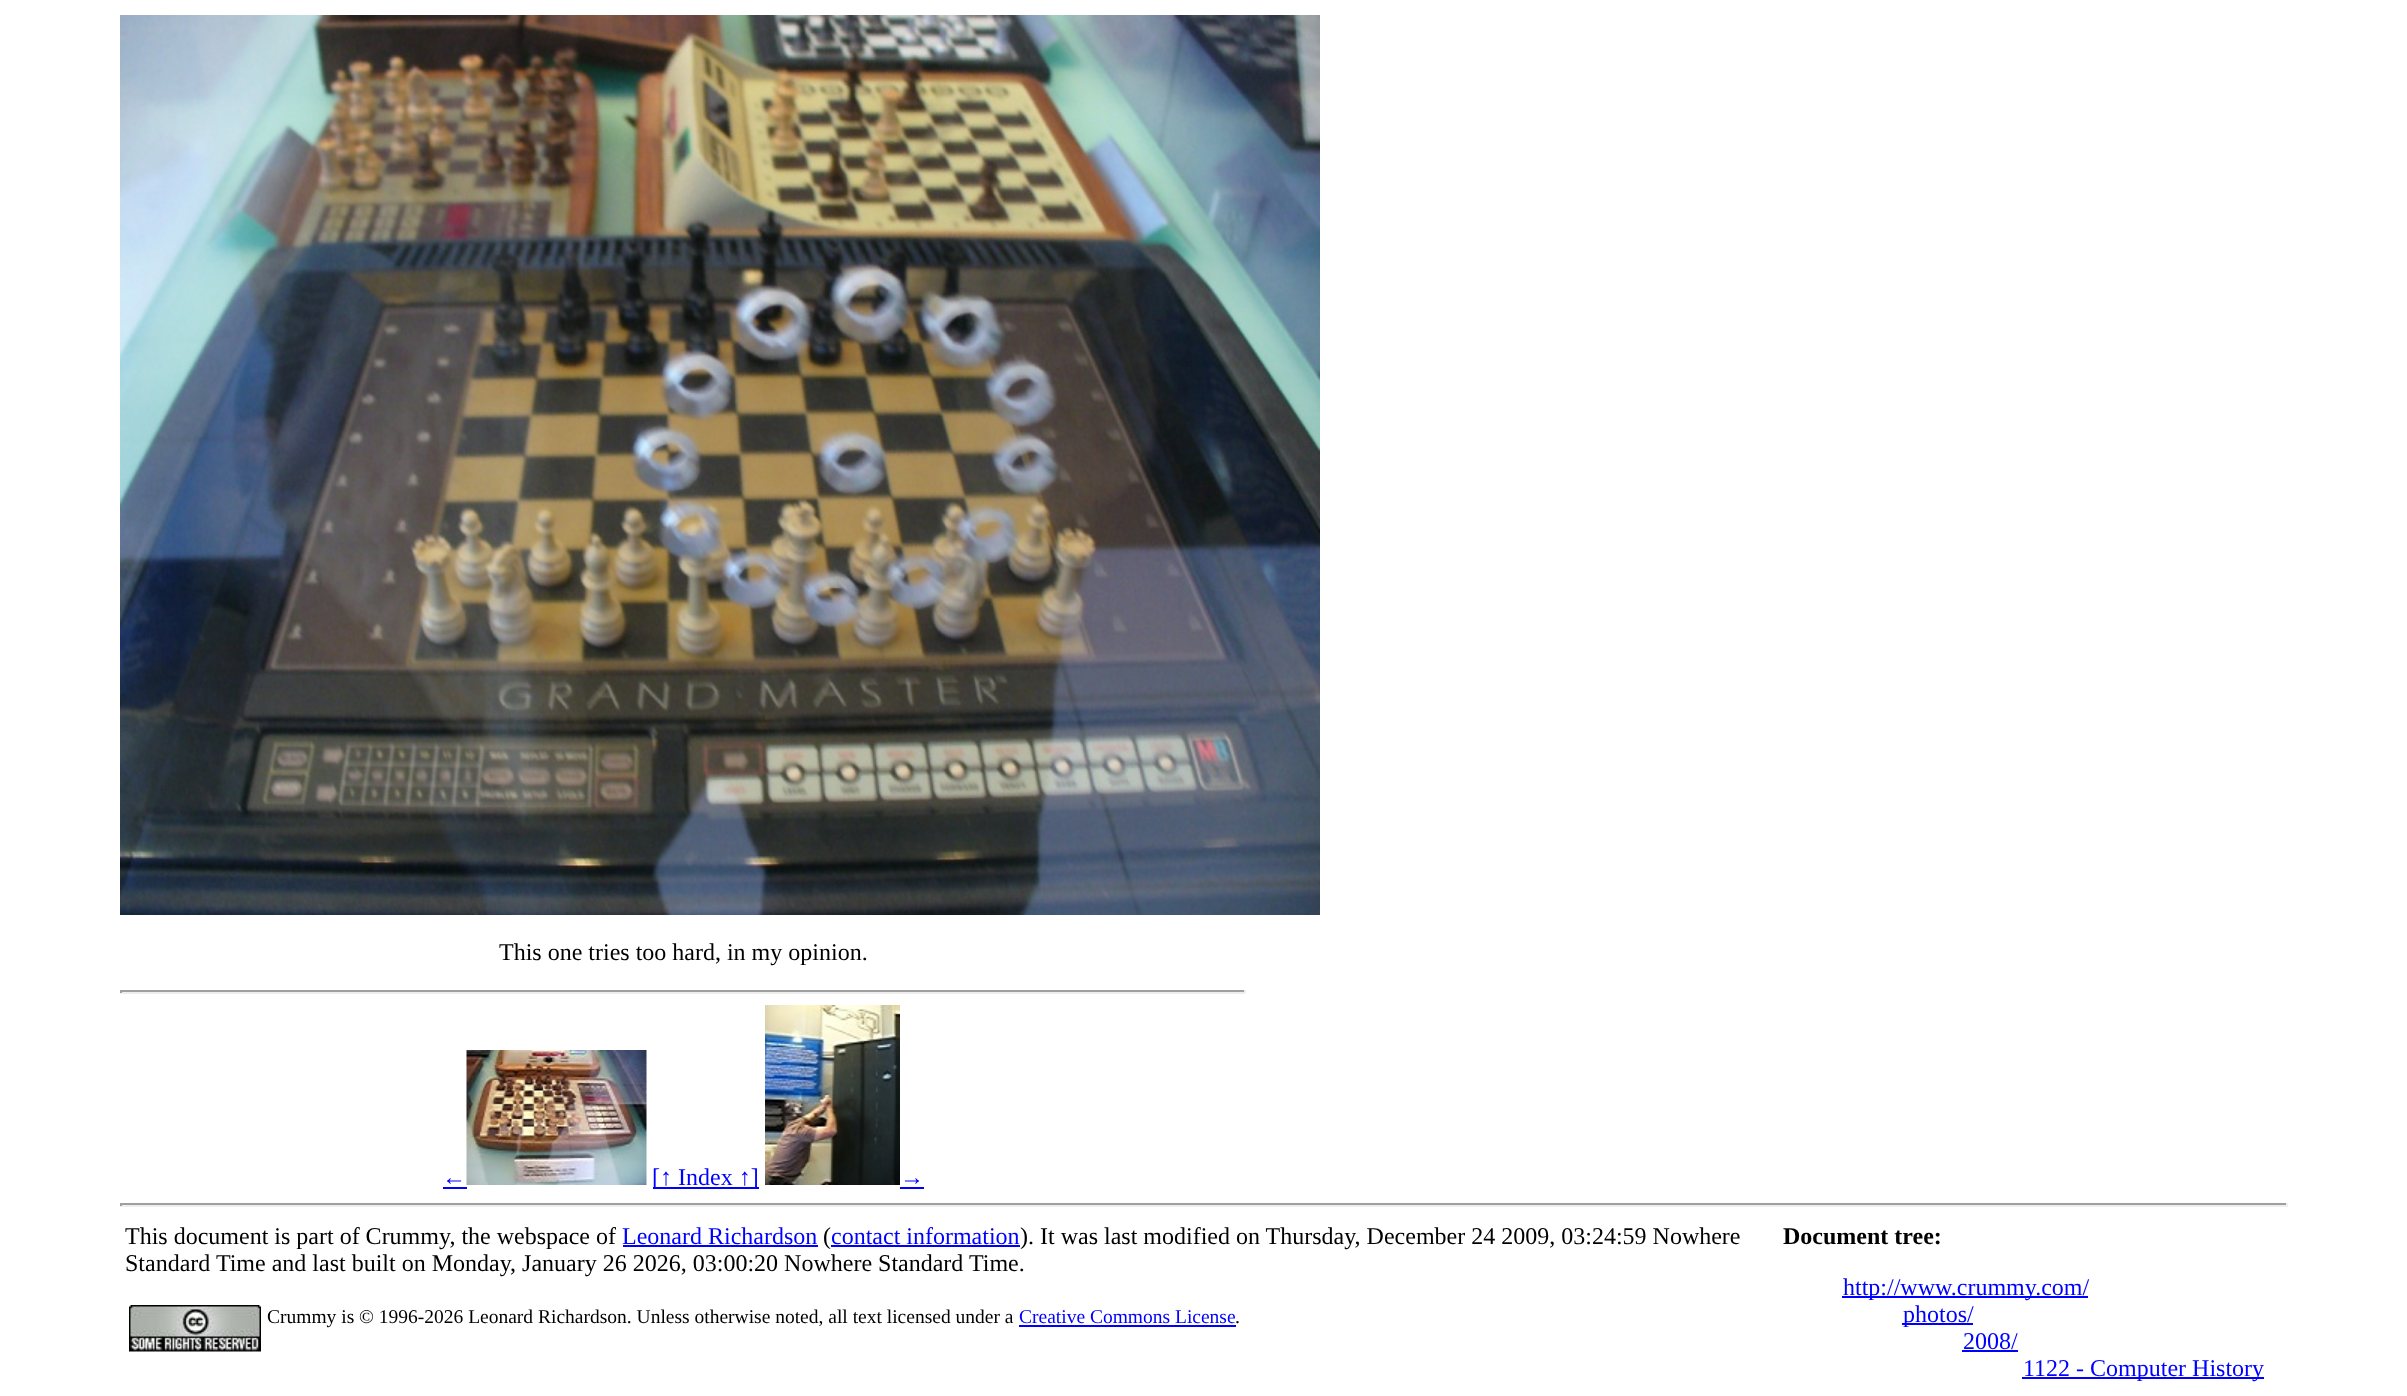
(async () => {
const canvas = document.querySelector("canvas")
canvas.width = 2407
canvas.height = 1396
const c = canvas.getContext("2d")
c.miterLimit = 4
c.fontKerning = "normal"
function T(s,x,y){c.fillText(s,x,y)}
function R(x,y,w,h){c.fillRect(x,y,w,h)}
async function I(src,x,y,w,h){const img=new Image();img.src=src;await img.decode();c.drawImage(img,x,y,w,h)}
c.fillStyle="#fff"
R(0,0,2407,1396)
await I("1.png",120,15,1200,900)
c.font="24px Liberation Serif"
c.fillStyle="#000"
T("This one tries too hard, in my opinion.",499,960)
c.fillStyle="#9f9f9f"
R(120,990,1125,2)
c.fillStyle="#eee"
R(1244,990,2,3)
R(120,992,1125,2)
c.fillStyle="#9f9f9f"
R(120,990,2,3)
c.fillStyle="#00f"
T("←",442,1185)
R(443,1187,24,2)
await I("2.png",466,1050,181,135)
R(653,1187,106,2)
T("[↑ Index ↑]",652,1185)
await I("3.png",765,1005,135,180)
T("→",900,1185)
R(900,1187,24,2)
c.fillStyle="#9f9f9f"
R(120,1203,2168,2)
c.fillStyle="#eee"
R(2286,1203,2,3)
R(120,1205,2168,2)
c.fillStyle="#9f9f9f"
R(120,1203,2,3)
c.fillStyle="#000"
T("This document is part of Crummy, the webspace of",125,1244)
c.fillStyle="#00f"
T("Leonard Richardson",622,1244)
R(623,1245,195,2)
c.fillStyle="#000"
T("(",823,1244)
c.fillStyle="#00f"
T("contact information",831,1244)
R(831,1245,189,2)
c.fillStyle="#000"
T("). It was last modified on Thursday, December 24 2009, 03:24:59 Nowhere",1020,1244)
T("Standard Time and last built on Monday, January 26 2026, 03:00:20 Nowhere Standard Time.",125,1271)
await I("4.png",129,1305,132,47)
c.font="19.5px Liberation Serif"
T("Crummy is © 1996-2026 Leonard Richardson. Unless otherwise noted, all text licensed under a",267,1323)
c.fillStyle="#00f"
T("Creative Commons License",1019,1323)
R(1019,1325,217,2)
c.fillStyle="#000"
T(".",1235,1323)
c.font="bold 24px Liberation Serif"
T("Document tree:",1783,1244)
c.fillStyle="#00f"
R(1842,1296,246,2)
c.font="24px Liberation Serif"
T("http://www.crummy.com/",1843,1295)
R(1902,1323,71,2)
T("photos/",1903,1322)
T("2008/",1963,1349)
R(1962,1350,56,2)
R(2022,1377,242,2)
T("1122 - Computer History",2023,1376)
})()
